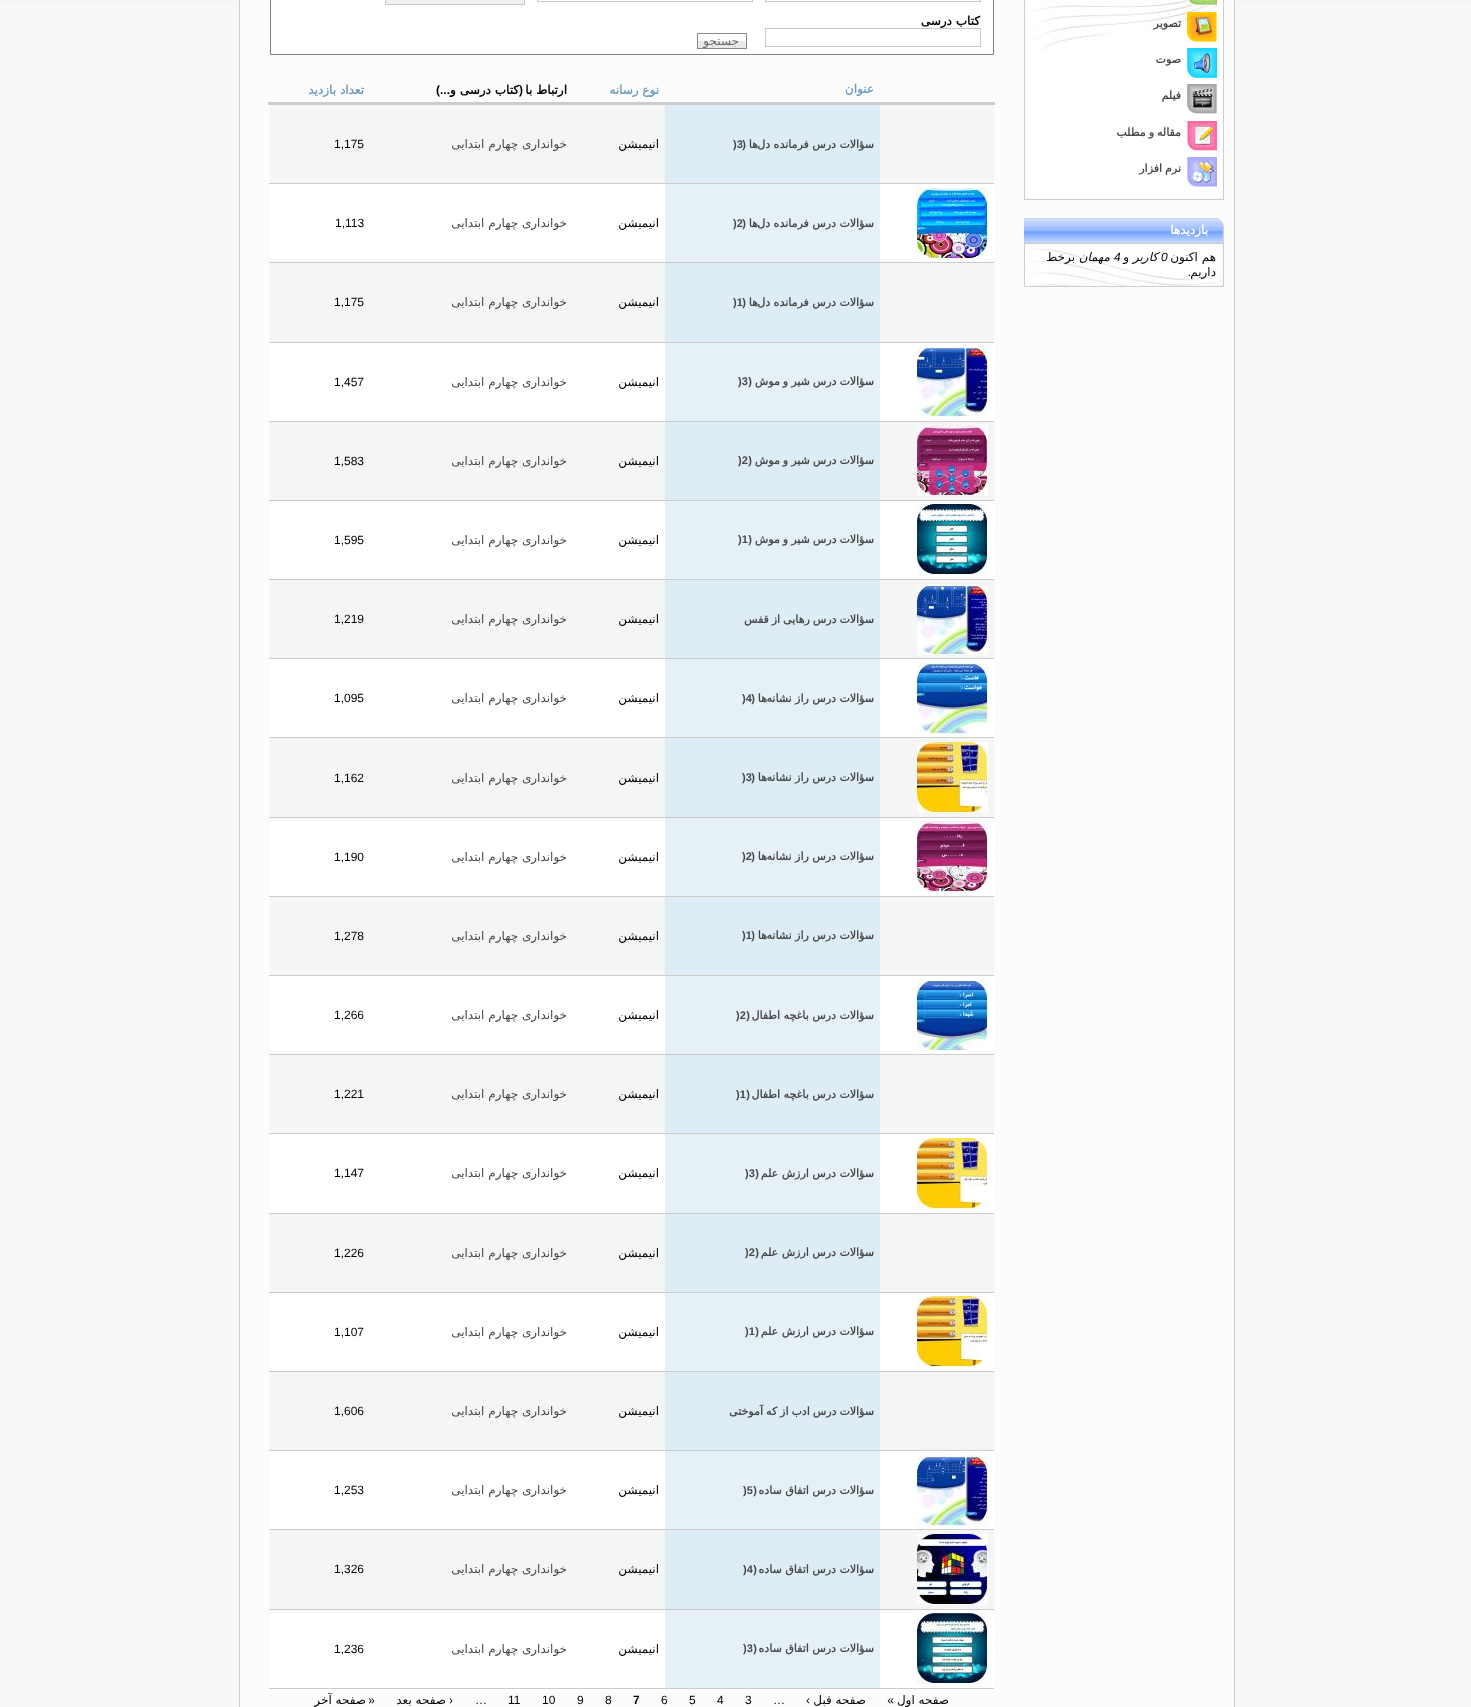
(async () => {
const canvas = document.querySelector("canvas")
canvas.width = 1471
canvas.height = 1707
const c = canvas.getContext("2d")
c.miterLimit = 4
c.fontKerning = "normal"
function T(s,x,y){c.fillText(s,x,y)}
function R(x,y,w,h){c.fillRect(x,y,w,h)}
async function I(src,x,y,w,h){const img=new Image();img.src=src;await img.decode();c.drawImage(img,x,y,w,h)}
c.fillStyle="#f7f7f7"
R(0,0,1471,1707)
c.fillStyle="#f7f5f1"
R(0,0,1471,4)
c.fillStyle="#fcfcfc"
R(240,0,994,1707)
c.fillStyle="#cecece"
R(1234,0,1,1707)
R(239,0,1,1707)
c.fillStyle="#fff"
R(1025,0,198,199)
await I("1.png",1030,0,193,52)
c.fillStyle="#cecece"
R(1223,0,1,200)
R(1024,199,200,1)
R(1024,0,1,200)
await I("2.png",1187,0,30,5)
await I("3.png",1187,12,30,30)
c.direction="rtl"
c.font="bold 11px DejaVu Sans"
c.fillStyle="#474747"
T("تصویر",1181,27)
await I("4.png",1187,48,30,30)
T("صوت",1181,63)
await I("5.png",1187,84,30,30)
T("فیلم",1181,99)
await I("6.png",1187,121,30,30)
c.wordSpacing="-0.5px"
T("مقاله و مطلب",1181,136)
await I("7.png",1187,157,30,30)
T("نرم افزار",1181,172)
await I("8.png",1216,218,8,26)
await I("9.png",1024,218,192,26)
c.wordSpacing="0px"
c.font="bold 12px DejaVu Sans"
c.fillStyle="#fff"
T("بازدیدها",1208,234)
R(1025,244,198,42)
await I("10.png",1031,248,192,38)
c.fillStyle="#cecece"
R(1223,244,1,43)
R(1024,286,200,1)
R(1024,244,1,43)
c.font="12px DejaVu Sans"
c.fillStyle="#000"
T("هم اکنون",1216,261)
c.direction="ltr"
c.font="italic 12px Liberation Sans"
T("0",1161,261)
c.direction="rtl"
c.font="italic 12px DejaVu Sans"
T("کاربر",1158,261)
c.font="12px DejaVu Sans"
T("و",1129,261)
c.direction="ltr"
c.font="italic 12px Liberation Sans"
T("4",1114,261)
c.direction="rtl"
c.font="italic 12px DejaVu Sans"
T("مهمان",1110,261)
c.font="12px DejaVu Sans"
T("برخط",1075,261)
T("داریم",1216,276)
c.font="12px Liberation Sans"
T(".",1191,276)
c.fillStyle="#fff"
c.beginPath()
c.rect(270.5,-.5,723,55)
c.fill()
c.strokeStyle="#808080"
c.stroke()
c.strokeStyle="#c8c8c8"
c.strokeRect(765.5,-.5,215,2)
c.strokeRect(537.5,-.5,215,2)
c.fillStyle="#efefef"
c.beginPath()
c.rect(385.5,-.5,139,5)
c.fill()
c.stroke()
c.font="bold 12px DejaVu Sans"
c.fillStyle="#000"
T("کتاب درسی",980,25)
c.strokeRect(765.5,28.5,215,18)
c.fillStyle="#e9e9e9"
R(697,41,50,7)
c.strokeStyle="#888"
c.strokeRect(697.5,33.5,49,15)
c.font="12px DejaVu Sans"
c.fillStyle="#666"
T("جستجو",739,45)
c.font="bold 12px DejaVu Sans"
c.fillStyle="#6f9dbd"
T("عنوان",874,93)
T("نوع رسانه",659,94)
c.fillStyle="#000"
T("ارتباط با",567,94)
c.font="bold 12px Liberation Sans"
T("...)",450,94)
c.font="bold 12px DejaVu Sans"
T("کتاب درسی و",519,94)
c.font="bold 12px Liberation Sans"
T("(",523,94)
c.fillStyle="#ccc"
R(268,102,727,3)
c.font="bold 12px DejaVu Sans"
c.fillStyle="#6f9dbd"
T("تعداد بازدید",364,94)
c.fillStyle="#f5f5f5"
R(270,105,724,78)
c.fillStyle="#ccc"
R(269,183,725,1)
c.fillStyle="#ddecf5"
R(665,105,215,78)
c.font="bold 11px DejaVu Sans"
c.fillStyle="#474747"
T("سؤالات درس فرمانده دل",874,148)
T("ها",758,148)
c.font="bold 11px Liberation Sans"
T("(",746,148)
c.direction="ltr"
T(")3",733,148)
c.direction="rtl"
c.font="12px DejaVu Sans"
c.fillStyle="#000"
T("انیمیشن",659,148)
c.fillStyle="#474747"
T("خوانداری چهارم ابتدایی",567,148)
c.direction="ltr"
c.font="12px Liberation Sans"
c.fillStyle="#000"
T("1,175",334,148)
c.fillStyle="#fff"
R(270,184,724,78)
c.fillStyle="#ccc"
R(269,262,725,1)
await I("11.png",917,188,71,71)
c.fillStyle="#e6f1f7"
R(665,184,215,78)
c.direction="rtl"
c.font="bold 11px DejaVu Sans"
c.fillStyle="#474747"
T("سؤالات درس فرمانده دل",874,227)
T("ها",758,227)
c.font="bold 11px Liberation Sans"
T("(",746,227)
c.direction="ltr"
T(")2",733,227)
c.direction="rtl"
c.font="12px DejaVu Sans"
c.fillStyle="#000"
T("انیمیشن",659,227)
c.fillStyle="#474747"
T("خوانداری چهارم ابتدایی",567,227)
c.direction="ltr"
c.font="12px Liberation Sans"
c.fillStyle="#000"
T("1,113",335,227)
c.fillStyle="#f5f5f5"
R(270,263,724,79)
c.fillStyle="#ccc"
R(269,342,725,1)
c.fillStyle="#ddecf5"
R(665,263,215,79)
c.direction="rtl"
c.font="bold 11px DejaVu Sans"
c.fillStyle="#474747"
T("سؤالات درس فرمانده دل",874,306)
T("ها",758,306)
c.font="bold 11px Liberation Sans"
T("(",746,306)
c.direction="ltr"
T(")1",733,306)
c.direction="rtl"
c.font="12px DejaVu Sans"
c.fillStyle="#000"
T("انیمیشن",659,306)
c.fillStyle="#474747"
T("خوانداری چهارم ابتدایی",567,306)
c.direction="ltr"
c.font="12px Liberation Sans"
c.fillStyle="#000"
T("1,175",334,306)
c.fillStyle="#fff"
R(270,343,724,78)
c.fillStyle="#ccc"
R(269,421,725,1)
await I("12.png",917,346,71,71)
c.fillStyle="#e6f1f7"
R(665,343,215,78)
c.wordSpacing="-0.5px"
c.direction="rtl"
c.font="bold 11px DejaVu Sans"
c.fillStyle="#474747"
T("سؤالات درس شیر و موش",874,385)
c.wordSpacing="0px"
c.font="bold 11px Liberation Sans"
T("(",752,385)
c.direction="ltr"
T(")3",738,385)
c.direction="rtl"
c.font="12px DejaVu Sans"
c.fillStyle="#000"
T("انیمیشن",659,386)
c.fillStyle="#474747"
T("خوانداری چهارم ابتدایی",567,386)
c.direction="ltr"
c.font="12px Liberation Sans"
c.fillStyle="#000"
T("1,457",334,386)
c.fillStyle="#f5f5f5"
R(270,422,724,78)
c.fillStyle="#ccc"
R(269,500,725,1)
await I("13.png",917,425,71,71)
c.fillStyle="#ddecf5"
R(665,422,215,78)
c.wordSpacing="-0.5px"
c.direction="rtl"
c.font="bold 11px DejaVu Sans"
c.fillStyle="#474747"
T("سؤالات درس شیر و موش",874,464)
c.wordSpacing="0px"
c.font="bold 11px Liberation Sans"
T("(",752,464)
c.direction="ltr"
T(")2",738,464)
c.direction="rtl"
c.font="12px DejaVu Sans"
c.fillStyle="#000"
T("انیمیشن",659,465)
c.fillStyle="#474747"
T("خوانداری چهارم ابتدایی",567,465)
c.direction="ltr"
c.font="12px Liberation Sans"
c.fillStyle="#000"
T("1,583",334,465)
c.fillStyle="#fff"
R(270,501,724,78)
c.fillStyle="#ccc"
R(269,579,725,1)
await I("14.png",917,504,71,71)
c.fillStyle="#e6f1f7"
R(665,501,215,78)
c.wordSpacing="-0.5px"
c.direction="rtl"
c.font="bold 11px DejaVu Sans"
c.fillStyle="#474747"
T("سؤالات درس شیر و موش",874,543)
c.wordSpacing="0px"
c.font="bold 11px Liberation Sans"
T("(",752,543)
c.direction="ltr"
T(")1",738,543)
c.direction="rtl"
c.font="12px DejaVu Sans"
c.fillStyle="#000"
T("انیمیشن",659,544)
c.fillStyle="#474747"
T("خوانداری چهارم ابتدایی",567,544)
c.direction="ltr"
c.font="12px Liberation Sans"
c.fillStyle="#000"
T("1,595",334,544)
c.fillStyle="#f5f5f5"
R(270,580,724,78)
c.fillStyle="#ccc"
R(269,658,725,1)
await I("15.png",917,584,71,71)
c.fillStyle="#ddecf5"
R(665,580,215,78)
c.wordSpacing="-0.5px"
c.direction="rtl"
c.font="bold 11px DejaVu Sans"
c.fillStyle="#474747"
T("سؤالات درس رهایی از قفس",874,623)
c.wordSpacing="0px"
c.font="12px DejaVu Sans"
c.fillStyle="#000"
T("انیمیشن",659,623)
c.fillStyle="#474747"
T("خوانداری چهارم ابتدایی",567,623)
c.direction="ltr"
c.font="12px Liberation Sans"
c.fillStyle="#000"
T("1,219",334,623)
c.fillStyle="#fff"
R(270,659,724,78)
c.fillStyle="#ccc"
R(269,737,725,1)
await I("16.png",917,663,71,71)
c.fillStyle="#e6f1f7"
R(665,659,215,78)
c.direction="rtl"
c.font="bold 11px DejaVu Sans"
c.fillStyle="#474747"
T("سؤالات درس راز نشانه",874,702)
T("ها",767,702)
c.font="bold 11px Liberation Sans"
T("(",755,702)
c.direction="ltr"
T(")4",742,702)
c.direction="rtl"
c.font="12px DejaVu Sans"
c.fillStyle="#000"
T("انیمیشن",659,702)
c.fillStyle="#474747"
T("خوانداری چهارم ابتدایی",567,702)
c.direction="ltr"
c.font="12px Liberation Sans"
c.fillStyle="#000"
T("1,095",334,702)
c.fillStyle="#f5f5f5"
R(270,738,724,79)
c.fillStyle="#ccc"
R(269,817,725,1)
await I("17.png",917,742,71,71)
c.fillStyle="#ddecf5"
R(665,738,215,79)
c.direction="rtl"
c.font="bold 11px DejaVu Sans"
c.fillStyle="#474747"
T("سؤالات درس راز نشانه",874,781)
T("ها",767,781)
c.font="bold 11px Liberation Sans"
T("(",755,781)
c.direction="ltr"
T(")3",742,781)
c.direction="rtl"
c.font="12px DejaVu Sans"
c.fillStyle="#000"
T("انیمیشن",659,782)
c.fillStyle="#474747"
T("خوانداری چهارم ابتدایی",567,782)
c.direction="ltr"
c.font="12px Liberation Sans"
c.fillStyle="#000"
T("1,162",334,782)
c.fillStyle="#fff"
R(270,818,724,78)
c.fillStyle="#ccc"
R(269,896,725,1)
await I("18.png",917,821,71,71)
c.fillStyle="#e6f1f7"
R(665,818,215,78)
c.direction="rtl"
c.font="bold 11px DejaVu Sans"
c.fillStyle="#474747"
T("سؤالات درس راز نشانه",874,860)
T("ها",767,860)
c.font="bold 11px Liberation Sans"
T("(",755,860)
c.direction="ltr"
T(")2",742,860)
c.direction="rtl"
c.font="12px DejaVu Sans"
c.fillStyle="#000"
T("انیمیشن",659,861)
c.fillStyle="#474747"
T("خوانداری چهارم ابتدایی",567,861)
c.direction="ltr"
c.font="12px Liberation Sans"
c.fillStyle="#000"
T("1,190",334,861)
c.fillStyle="#f5f5f5"
R(270,897,724,78)
c.fillStyle="#ccc"
R(269,975,725,1)
c.fillStyle="#ddecf5"
R(665,897,215,78)
c.direction="rtl"
c.font="bold 11px DejaVu Sans"
c.fillStyle="#474747"
T("سؤالات درس راز نشانه",874,939)
T("ها",767,939)
c.font="bold 11px Liberation Sans"
T("(",755,939)
c.direction="ltr"
T(")1",742,939)
c.direction="rtl"
c.font="12px DejaVu Sans"
c.fillStyle="#000"
T("انیمیشن",659,940)
c.fillStyle="#474747"
T("خوانداری چهارم ابتدایی",567,940)
c.direction="ltr"
c.font="12px Liberation Sans"
c.fillStyle="#000"
T("1,278",334,940)
c.fillStyle="#fff"
R(270,976,724,78)
c.fillStyle="#ccc"
R(269,1054,725,1)
await I("19.png",917,980,71,71)
c.fillStyle="#e6f1f7"
R(665,976,215,78)
c.direction="rtl"
c.font="bold 11px DejaVu Sans"
c.fillStyle="#474747"
T("سؤالات درس باغچه اطفال",874,1019)
c.font="bold 11px Liberation Sans"
T("(",750,1019)
c.direction="ltr"
T(")2",736,1019)
c.direction="rtl"
c.font="12px DejaVu Sans"
c.fillStyle="#000"
T("انیمیشن",659,1019)
c.fillStyle="#474747"
T("خوانداری چهارم ابتدایی",567,1019)
c.direction="ltr"
c.font="12px Liberation Sans"
c.fillStyle="#000"
T("1,266",334,1019)
c.fillStyle="#f5f5f5"
R(270,1055,724,78)
c.fillStyle="#ccc"
R(269,1133,725,1)
c.fillStyle="#ddecf5"
R(665,1055,215,78)
c.direction="rtl"
c.font="bold 11px DejaVu Sans"
c.fillStyle="#474747"
T("سؤالات درس باغچه اطفال",874,1098)
c.font="bold 11px Liberation Sans"
T("(",750,1098)
c.direction="ltr"
T(")1",736,1098)
c.direction="rtl"
c.font="12px DejaVu Sans"
c.fillStyle="#000"
T("انیمیشن",659,1098)
c.fillStyle="#474747"
T("خوانداری چهارم ابتدایی",567,1098)
c.direction="ltr"
c.font="12px Liberation Sans"
c.fillStyle="#000"
T("1,221",334,1098)
c.fillStyle="#fff"
R(270,1134,724,79)
c.fillStyle="#ccc"
R(269,1213,725,1)
await I("20.png",917,1138,71,71)
c.fillStyle="#e6f1f7"
R(665,1134,215,79)
c.direction="rtl"
c.font="bold 11px DejaVu Sans"
c.fillStyle="#474747"
T("سؤالات درس ارزش علم",874,1177)
c.font="bold 11px Liberation Sans"
T("(",759,1177)
c.direction="ltr"
T(")3",745,1177)
c.direction="rtl"
c.font="12px DejaVu Sans"
c.fillStyle="#000"
T("انیمیشن",659,1177)
c.fillStyle="#474747"
T("خوانداری چهارم ابتدایی",567,1177)
c.direction="ltr"
c.font="12px Liberation Sans"
c.fillStyle="#000"
T("1,147",334,1177)
c.fillStyle="#f5f5f5"
R(270,1214,724,78)
c.fillStyle="#ccc"
R(269,1292,725,1)
c.fillStyle="#ddecf5"
R(665,1214,215,78)
c.direction="rtl"
c.font="bold 11px DejaVu Sans"
c.fillStyle="#474747"
T("سؤالات درس ارزش علم",874,1256)
c.font="bold 11px Liberation Sans"
T("(",759,1256)
c.direction="ltr"
T(")2",745,1256)
c.direction="rtl"
c.font="12px DejaVu Sans"
c.fillStyle="#000"
T("انیمیشن",659,1257)
c.fillStyle="#474747"
T("خوانداری چهارم ابتدایی",567,1257)
c.direction="ltr"
c.font="12px Liberation Sans"
c.fillStyle="#000"
T("1,226",334,1257)
c.fillStyle="#fff"
R(270,1293,724,78)
c.fillStyle="#ccc"
R(269,1371,725,1)
await I("21.png",917,1296,71,71)
c.fillStyle="#e6f1f7"
R(665,1293,215,78)
c.direction="rtl"
c.font="bold 11px DejaVu Sans"
c.fillStyle="#474747"
T("سؤالات درس ارزش علم",874,1335)
c.font="bold 11px Liberation Sans"
T("(",759,1335)
c.direction="ltr"
T(")1",745,1335)
c.direction="rtl"
c.font="12px DejaVu Sans"
c.fillStyle="#000"
T("انیمیشن",659,1336)
c.fillStyle="#474747"
T("خوانداری چهارم ابتدایی",567,1336)
c.direction="ltr"
c.font="12px Liberation Sans"
c.fillStyle="#000"
T("1,107",334,1336)
c.fillStyle="#f5f5f5"
R(270,1372,724,78)
c.fillStyle="#ccc"
R(269,1450,725,1)
c.fillStyle="#ddecf5"
R(665,1372,215,78)
c.wordSpacing="-0.5px"
c.direction="rtl"
c.font="bold 11px DejaVu Sans"
c.fillStyle="#474747"
T("سؤالات درس ادب از که آموختی",874,1415)
c.wordSpacing="0px"
c.font="12px DejaVu Sans"
c.fillStyle="#000"
T("انیمیشن",659,1415)
c.fillStyle="#474747"
T("خوانداری چهارم ابتدایی",567,1415)
c.direction="ltr"
c.font="12px Liberation Sans"
c.fillStyle="#000"
T("1,606",334,1415)
c.fillStyle="#fff"
R(270,1451,724,78)
c.fillStyle="#ccc"
R(269,1529,725,1)
await I("22.png",917,1455,71,71)
c.fillStyle="#e6f1f7"
R(665,1451,215,78)
c.direction="rtl"
c.font="bold 11px DejaVu Sans"
c.fillStyle="#474747"
T("سؤالات درس اتفاق ساده",874,1494)
c.font="bold 11px Liberation Sans"
T("(",757,1494)
c.direction="ltr"
T(")5",743,1494)
c.direction="rtl"
c.font="12px DejaVu Sans"
c.fillStyle="#000"
T("انیمیشن",659,1494)
c.fillStyle="#474747"
T("خوانداری چهارم ابتدایی",567,1494)
c.direction="ltr"
c.font="12px Liberation Sans"
c.fillStyle="#000"
T("1,253",334,1494)
c.fillStyle="#f5f5f5"
R(270,1530,724,79)
c.fillStyle="#ccc"
R(269,1609,725,1)
await I("23.png",917,1534,71,71)
c.fillStyle="#ddecf5"
R(665,1530,215,79)
c.direction="rtl"
c.font="bold 11px DejaVu Sans"
c.fillStyle="#474747"
T("سؤالات درس اتفاق ساده",874,1573)
c.font="bold 11px Liberation Sans"
T("(",757,1573)
c.direction="ltr"
T(")4",743,1573)
c.direction="rtl"
c.font="12px DejaVu Sans"
c.fillStyle="#000"
T("انیمیشن",659,1573)
c.fillStyle="#474747"
T("خوانداری چهارم ابتدایی",567,1573)
c.direction="ltr"
c.font="12px Liberation Sans"
c.fillStyle="#000"
T("1,326",334,1573)
c.fillStyle="#fff"
R(270,1610,724,78)
c.fillStyle="#ccc"
R(269,1688,725,1)
await I("24.png",917,1613,71,71)
c.fillStyle="#e6f1f7"
R(665,1610,215,78)
c.direction="rtl"
c.font="bold 11px DejaVu Sans"
c.fillStyle="#474747"
T("سؤالات درس اتفاق ساده",874,1652)
c.font="bold 11px Liberation Sans"
T("(",757,1652)
c.direction="ltr"
T(")3",743,1652)
c.direction="rtl"
c.font="12px DejaVu Sans"
c.fillStyle="#000"
T("انیمیشن",659,1653)
c.fillStyle="#474747"
T("خوانداری چهارم ابتدایی",567,1653)
c.direction="ltr"
c.font="12px Liberation Sans"
c.fillStyle="#000"
T("1,236",334,1653)
c.direction="rtl"
c.font="12px DejaVu Sans"
T("صفحه اول",949,1704)
c.font="12px Liberation Sans"
T("»",894,1704)
c.font="12px DejaVu Sans"
T("صفحه قبل",866,1704)
c.font="12px Liberation Sans"
T("›",810,1704)
c.direction="ltr"
T("…",773,1704)
T("3",745,1704)
T("4",717,1704)
T("5",689,1704)
T("6",661,1704)
c.font="bold 12px Liberation Sans"
T("7",633,1704)
c.font="12px Liberation Sans"
T("8",605,1704)
T("9",577,1704)
T("10",542,1704)
T("11",508,1704)
T("…",475,1704)
c.direction="rtl"
T("‹",453,1704)
c.font="12px DejaVu Sans"
T("صفحه بعد",446,1704)
c.font="12px Liberation Sans"
T("«",375,1704)
c.font="12px DejaVu Sans"
T("صفحه آخر",366,1704)
})()
